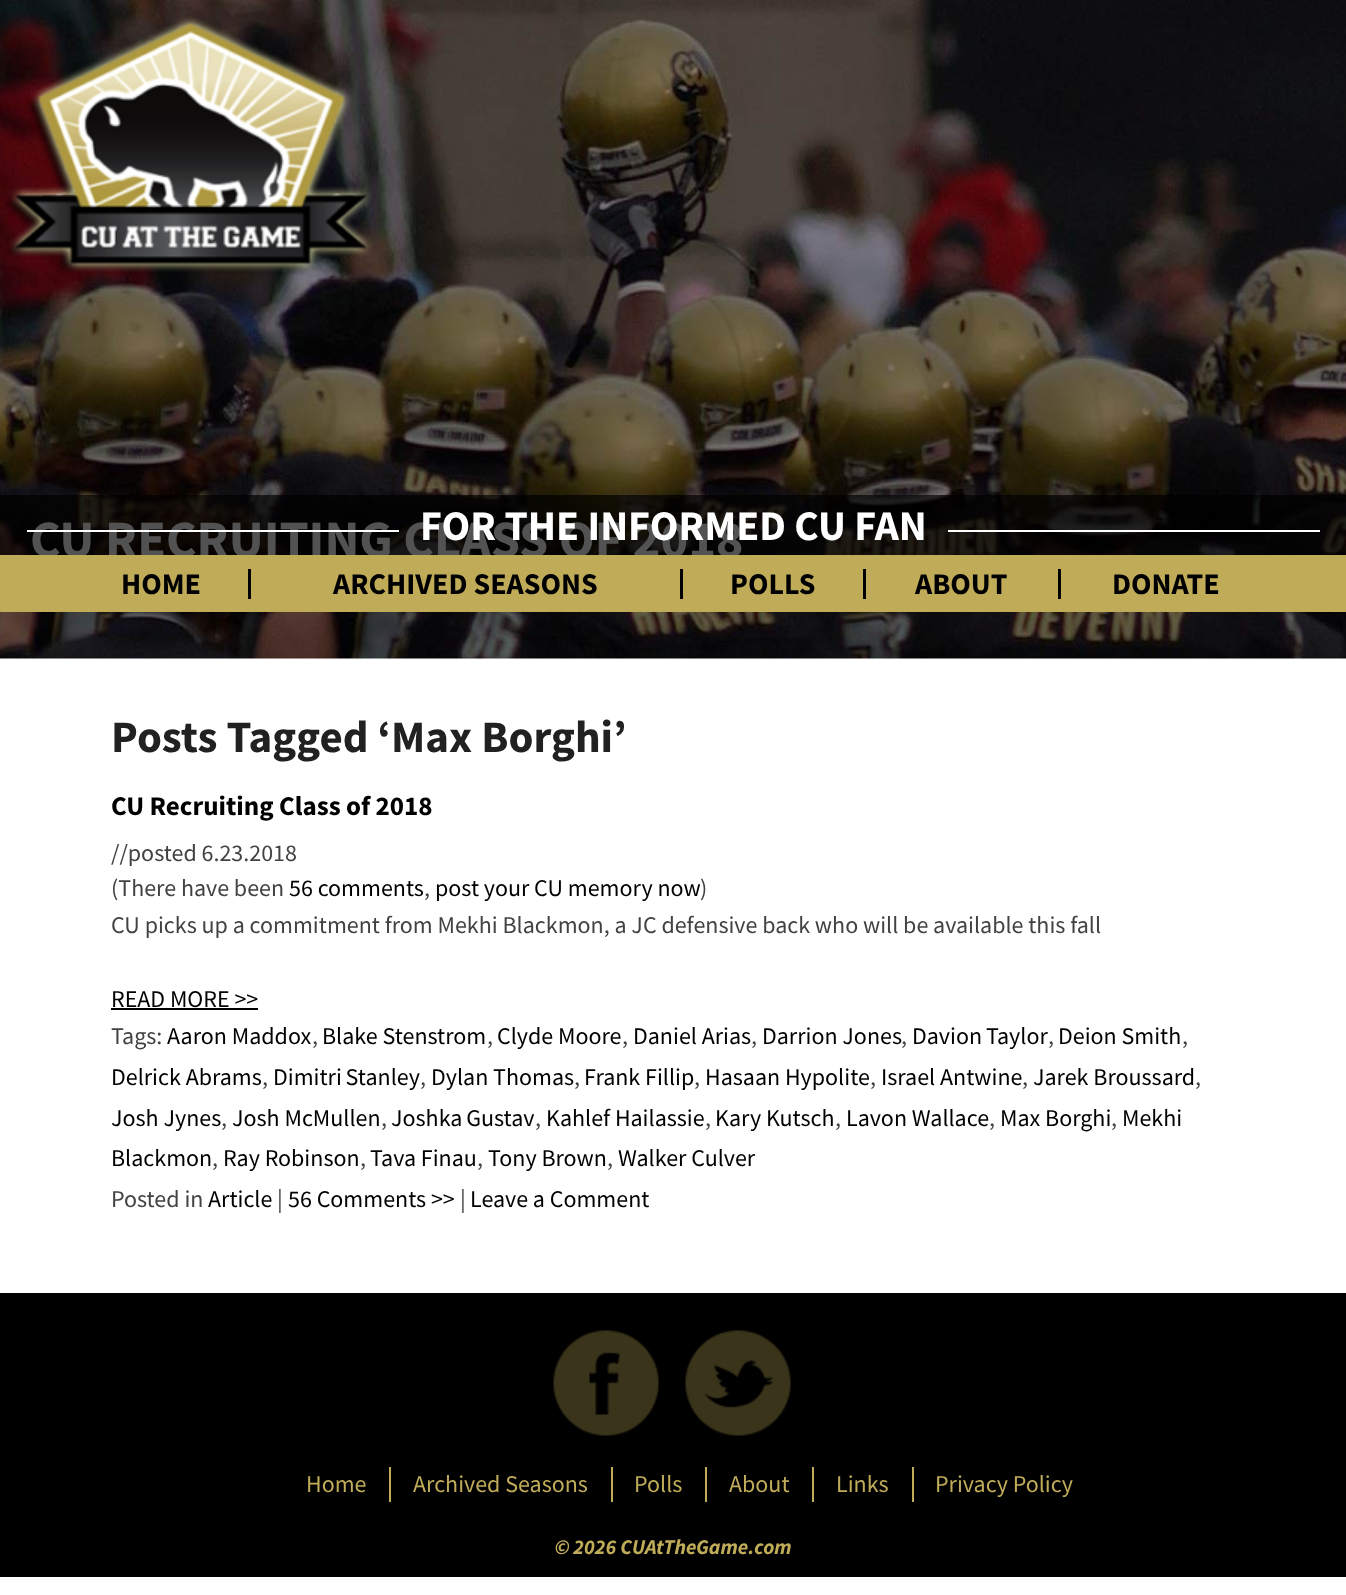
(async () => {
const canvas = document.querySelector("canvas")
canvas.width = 1346
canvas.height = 1595
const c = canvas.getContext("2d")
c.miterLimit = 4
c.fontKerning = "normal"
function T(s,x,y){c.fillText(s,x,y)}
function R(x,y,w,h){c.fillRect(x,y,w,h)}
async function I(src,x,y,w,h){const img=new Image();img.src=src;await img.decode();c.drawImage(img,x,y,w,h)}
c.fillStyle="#fff"
R(0,0,1346,1595)
await I("2.png",0,0,1346,659)
await I("1.png",4,16,368,258)
c.font="bold 52.5px Source Sans Pro"
T("CU RECRUITING CLASS OF 2018",30,557)
c.fillStyle="#000000ad"
R(0,495,1346,60)
c.fillStyle="#fff"
R(27,530,372,2)
c.font="bold 42px Source Sans Pro"
T("FOR THE INFORMED CU FAN",420,540)
R(948,530,372,2)
c.fillStyle="#c0ac58"
R(0,555,1346,57)
c.font="bold 30px Source Sans Pro"
c.fillStyle="#000"
T("HOME",121,594)
R(248,569,3,30)
T("ARCHIVED SEASONS",333,594)
R(680,569,3,30)
T("POLLS",730,594)
R(863,569,3,30)
T("ABOUT",915,594)
R(1058,569,3,30)
T("DONATE",1112,594)
c.font="bold 45px Source Sans Pro"
c.fillStyle="#212121"
T("Posts Tagged ‘Max Borghi’",111,752)
c.font="bold 27px Source Sans Pro"
c.fillStyle="#000"
T("CU Recruiting Class of 2018",111,815)
c.font="24px Source Sans Pro"
c.fillStyle="#424242"
T("//posted 6.23.2018",111,861)
T("(There have been",111,896)
c.fillStyle="#000"
T("56 comments",289,896)
c.fillStyle="#424242"
T(",",424,896)
c.fillStyle="#000"
T("post your CU memory now",435,896)
c.fillStyle="#424242"
T(")",700,896)
T("CU picks up a commitment from Mekhi Blackmon, a JC defensive back who will be available this fall",111,933)
c.fillStyle="#000"
T("READ MORE >>",111,1007)
R(111,1008,147,2)
c.fillStyle="#424242"
T("Tags:",111,1044)
c.fillStyle="#000"
T("Aaron Maddox",167,1044)
c.fillStyle="#424242"
T(",",312,1044)
c.fillStyle="#000"
T("Blake Stenstrom",322,1044)
c.fillStyle="#424242"
T(",",487,1044)
c.fillStyle="#000"
T("Clyde Moore",497,1044)
c.fillStyle="#424242"
T(",",622,1044)
c.fillStyle="#000"
T("Daniel Arias",633,1044)
c.fillStyle="#424242"
T(",",751,1044)
c.fillStyle="#000"
T("Darrion Jones",762,1044)
c.fillStyle="#424242"
T(",",901,1044)
c.wordSpacing="-1px"
c.fillStyle="#000"
T("Davion Taylor",912,1044)
c.wordSpacing="0px"
c.fillStyle="#424242"
T(",",1048,1044)
c.fillStyle="#000"
T("Deion Smith",1058,1044)
c.fillStyle="#424242"
T(",",1182,1044)
c.fillStyle="#000"
T("Delrick Abrams",111,1085)
c.fillStyle="#424242"
T(",",262,1085)
c.wordSpacing="-1px"
c.fillStyle="#000"
T("Dimitri Stanley",273,1085)
c.wordSpacing="0px"
c.fillStyle="#424242"
T(",",420,1085)
c.fillStyle="#000"
T("Dylan Thomas",431,1085)
c.fillStyle="#424242"
T(",",574,1085)
c.fillStyle="#000"
T("Frank Fillip",584,1085)
c.fillStyle="#424242"
T(",",694,1085)
c.fillStyle="#000"
T("Hasaan Hypolite",705,1085)
c.fillStyle="#424242"
T(",",870,1085)
c.fillStyle="#000"
T("Israel Antwine",881,1085)
c.fillStyle="#424242"
T(",",1022,1085)
c.fillStyle="#000"
T("Jarek Broussard",1033,1085)
c.fillStyle="#424242"
T(",",1195,1085)
c.fillStyle="#000"
T("Josh Jynes",111,1126)
c.fillStyle="#424242"
T(",",221,1126)
c.fillStyle="#000"
T("Josh McMullen",232,1126)
c.fillStyle="#424242"
T(",",381,1126)
c.wordSpacing="-1px"
c.fillStyle="#000"
T("Joshka Gustav",391,1126)
c.wordSpacing="0px"
c.fillStyle="#424242"
T(",",535,1126)
c.fillStyle="#000"
T("Kahlef Hailassie",546,1126)
c.fillStyle="#424242"
T(",",705,1126)
c.fillStyle="#000"
T("Kary Kutsch",715,1126)
c.fillStyle="#424242"
T(",",835,1126)
c.fillStyle="#000"
T("Lavon Wallace",846,1126)
c.fillStyle="#424242"
T(",",989,1126)
c.fillStyle="#000"
T("Max Borghi",1000,1126)
c.fillStyle="#424242"
T(",",1111,1126)
c.fillStyle="#000"
T("Mekhi",1122,1126)
T("Blackmon",111,1166)
c.fillStyle="#424242"
T(",",212,1166)
c.fillStyle="#000"
T("Ray Robinson",223,1166)
c.fillStyle="#424242"
T(",",360,1166)
c.fillStyle="#000"
T("Tava Finau",370,1166)
c.fillStyle="#424242"
T(",",477,1166)
c.fillStyle="#000"
T("Tony Brown",488,1166)
c.fillStyle="#424242"
T(",",607,1166)
c.fillStyle="#000"
T("Walker Culver",618,1166)
c.fillStyle="#424242"
T("Posted in",111,1207)
c.fillStyle="#000"
T("Article",208,1207)
c.fillStyle="#424242"
T("|",277,1207)
c.fillStyle="#000"
T("56 Comments >>",288,1207)
c.fillStyle="#424242"
T("|",460,1207)
c.fillStyle="#000"
T("Leave a Comment",470,1207)
R(0,1293,1346,284)
await I("3.png",553,1330,106,106)
await I("4.png",685,1330,106,106)
c.fillStyle="#c0ac58"
T("Home",306,1492)
R(389,1467,2,35)
T("Archived Seasons",413,1492)
R(611,1467,2,35)
T("Polls",634,1492)
R(705,1467,2,35)
T("About",729,1492)
R(812,1467,2,35)
T("Links",836,1492)
R(912,1467,2,35)
T("Privacy Policy",935,1492)
c.font="italic bold 21px Source Sans Pro"
T("© 2026 CUAtTheGame.com",555,1554)
})()
